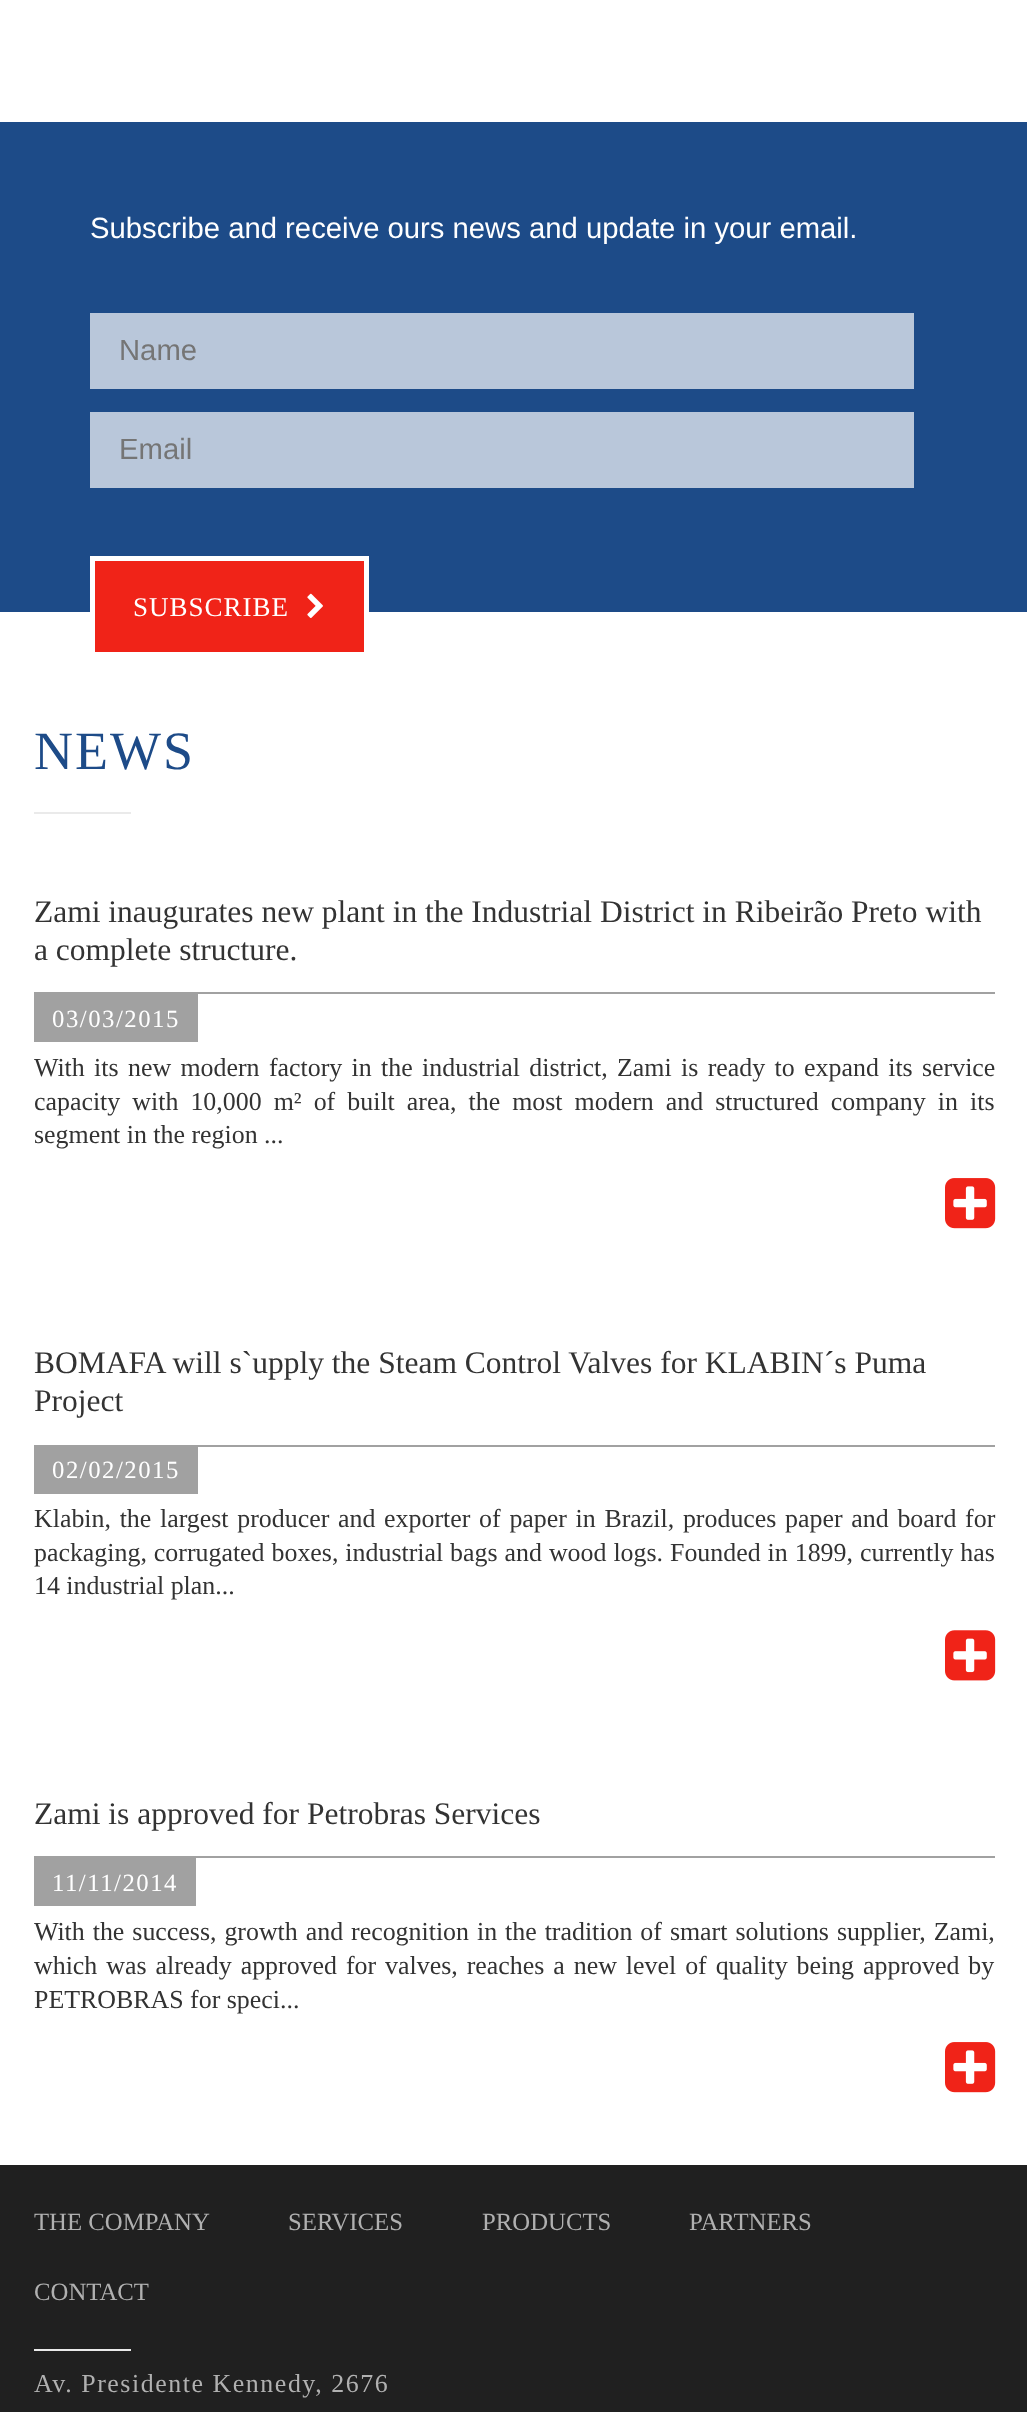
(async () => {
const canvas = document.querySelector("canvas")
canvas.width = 1027
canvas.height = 2412
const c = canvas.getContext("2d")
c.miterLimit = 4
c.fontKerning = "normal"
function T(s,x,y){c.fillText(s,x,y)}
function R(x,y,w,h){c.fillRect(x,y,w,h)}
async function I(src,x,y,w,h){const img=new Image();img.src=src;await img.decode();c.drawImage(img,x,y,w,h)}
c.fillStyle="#fff"
R(0,0,1027,2412)
c.fillStyle="#1d4b88"
R(0,122,1027,490)
c.font="29.25px Liberation Sans"
c.fillStyle="#fff"
T("Subscribe and receive ours news and update in your email.",90,238)
c.fillStyle="#b9c7da"
R(90,313,824,76)
c.fillStyle="#757575"
T("Name",119,360)
c.fillStyle="#b9c7da"
R(90,412,824,76)
c.fillStyle="#757575"
T("Email",119,459)
c.fillStyle="#f02318"
c.beginPath()
c.rect(92.5,558.5,274,96)
c.fill()
c.strokeStyle="#fff"
c.lineWidth=5
c.stroke()
c.letterSpacing="1px"
c.font="27px Liberation Serif"
c.fillStyle="#fff"
T("SUBSCRIBE",133,616)
await I("1.png",307,593,16,25)
c.letterSpacing="2px"
c.font="54px Liberation Serif"
c.fillStyle="#1d4b88"
T("NEWS",34,769)
c.fillStyle="#eaeaea"
R(34,812,97,2)
c.letterSpacing="0px"
c.font="31.5px Liberation Serif"
c.fillStyle="#333"
T("Zami inaugurates new plant in the Industrial District in Ribeirão Preto with",34,922)
T("a complete structure.",34,960)
c.fillStyle="#a1a1a1"
R(198,992,797,2)
R(34,992,164,50)
c.letterSpacing="1.5px"
c.font="24.75px Liberation Serif"
c.fillStyle="#fff"
T("03/03/2015",52,1027)
c.letterSpacing="0px"
c.wordSpacing="2.9px"
c.font="25.9px Liberation Serif"
c.fillStyle="#333"
T("With its new modern factory in the industrial district, Zami is ready to expand its service",34,1076)
c.wordSpacing="5.6px"
T("capacity with 10,000 m² of built area, the most modern and structured company in its",34,1110)
c.wordSpacing="0px"
T("segment in the region ...",34,1143)
await I("2.png",945,1178,51,51)
c.font="31.5px Liberation Serif"
T("BOMAFA will s`upply the Steam Control Valves for KLABIN´s Puma",34,1373)
T("Project",34,1411)
c.fillStyle="#a1a1a1"
R(198,1445,797,2)
R(34,1445,164,49)
c.letterSpacing="1.5px"
c.font="24.75px Liberation Serif"
c.fillStyle="#fff"
T("02/02/2015",52,1478)
c.letterSpacing="0px"
c.wordSpacing="2.25px"
c.font="25.9px Liberation Serif"
c.fillStyle="#333"
T("Klabin, the largest producer and exporter of paper in Brazil, produces paper and board for",34,1527)
c.wordSpacing="0.5px"
T("packaging, corrugated boxes, industrial bags and wood logs. Founded in 1899, currently has",34,1561)
c.wordSpacing="0px"
T("14 industrial plan...",34,1594)
await I("3.png",945,1630,51,51)
c.font="31.5px Liberation Serif"
T("Zami is approved for Petrobras Services",34,1824)
c.fillStyle="#a1a1a1"
R(196,1856,799,2)
R(34,1856,162,50)
c.letterSpacing="1.5px"
c.font="24.75px Liberation Serif"
c.fillStyle="#fff"
T("11/11/2014",52,1891)
c.letterSpacing="0px"
c.wordSpacing="1.5px"
c.font="25.9px Liberation Serif"
c.fillStyle="#333"
T("With the success, growth and recognition in the tradition of smart solutions supplier, Zami,",34,1940)
c.wordSpacing="2.5px"
T("which was already approved for valves, reaches a new level of quality being approved by",34,1974)
c.wordSpacing="0px"
T("PETROBRAS for speci...",34,2008)
await I("2.png",945,2042,51,51)
c.fillStyle="#202020"
R(0,2165,1027,247)
c.font="24.75px Liberation Serif"
c.fillStyle="#b0b0b0"
T("THE COMPANY",34,2230)
T("SERVICES",288,2230)
T("PRODUCTS",482,2230)
T("PARTNERS",689,2230)
T("CONTACT",34,2300)
c.fillStyle="#eaeaea"
R(34,2349,97,2)
c.letterSpacing="1.55px"
c.font="25.9px Liberation Serif"
c.fillStyle="#b0b0b0"
T("Av. Presidente Kennedy, 2676",34,2392)
})()
